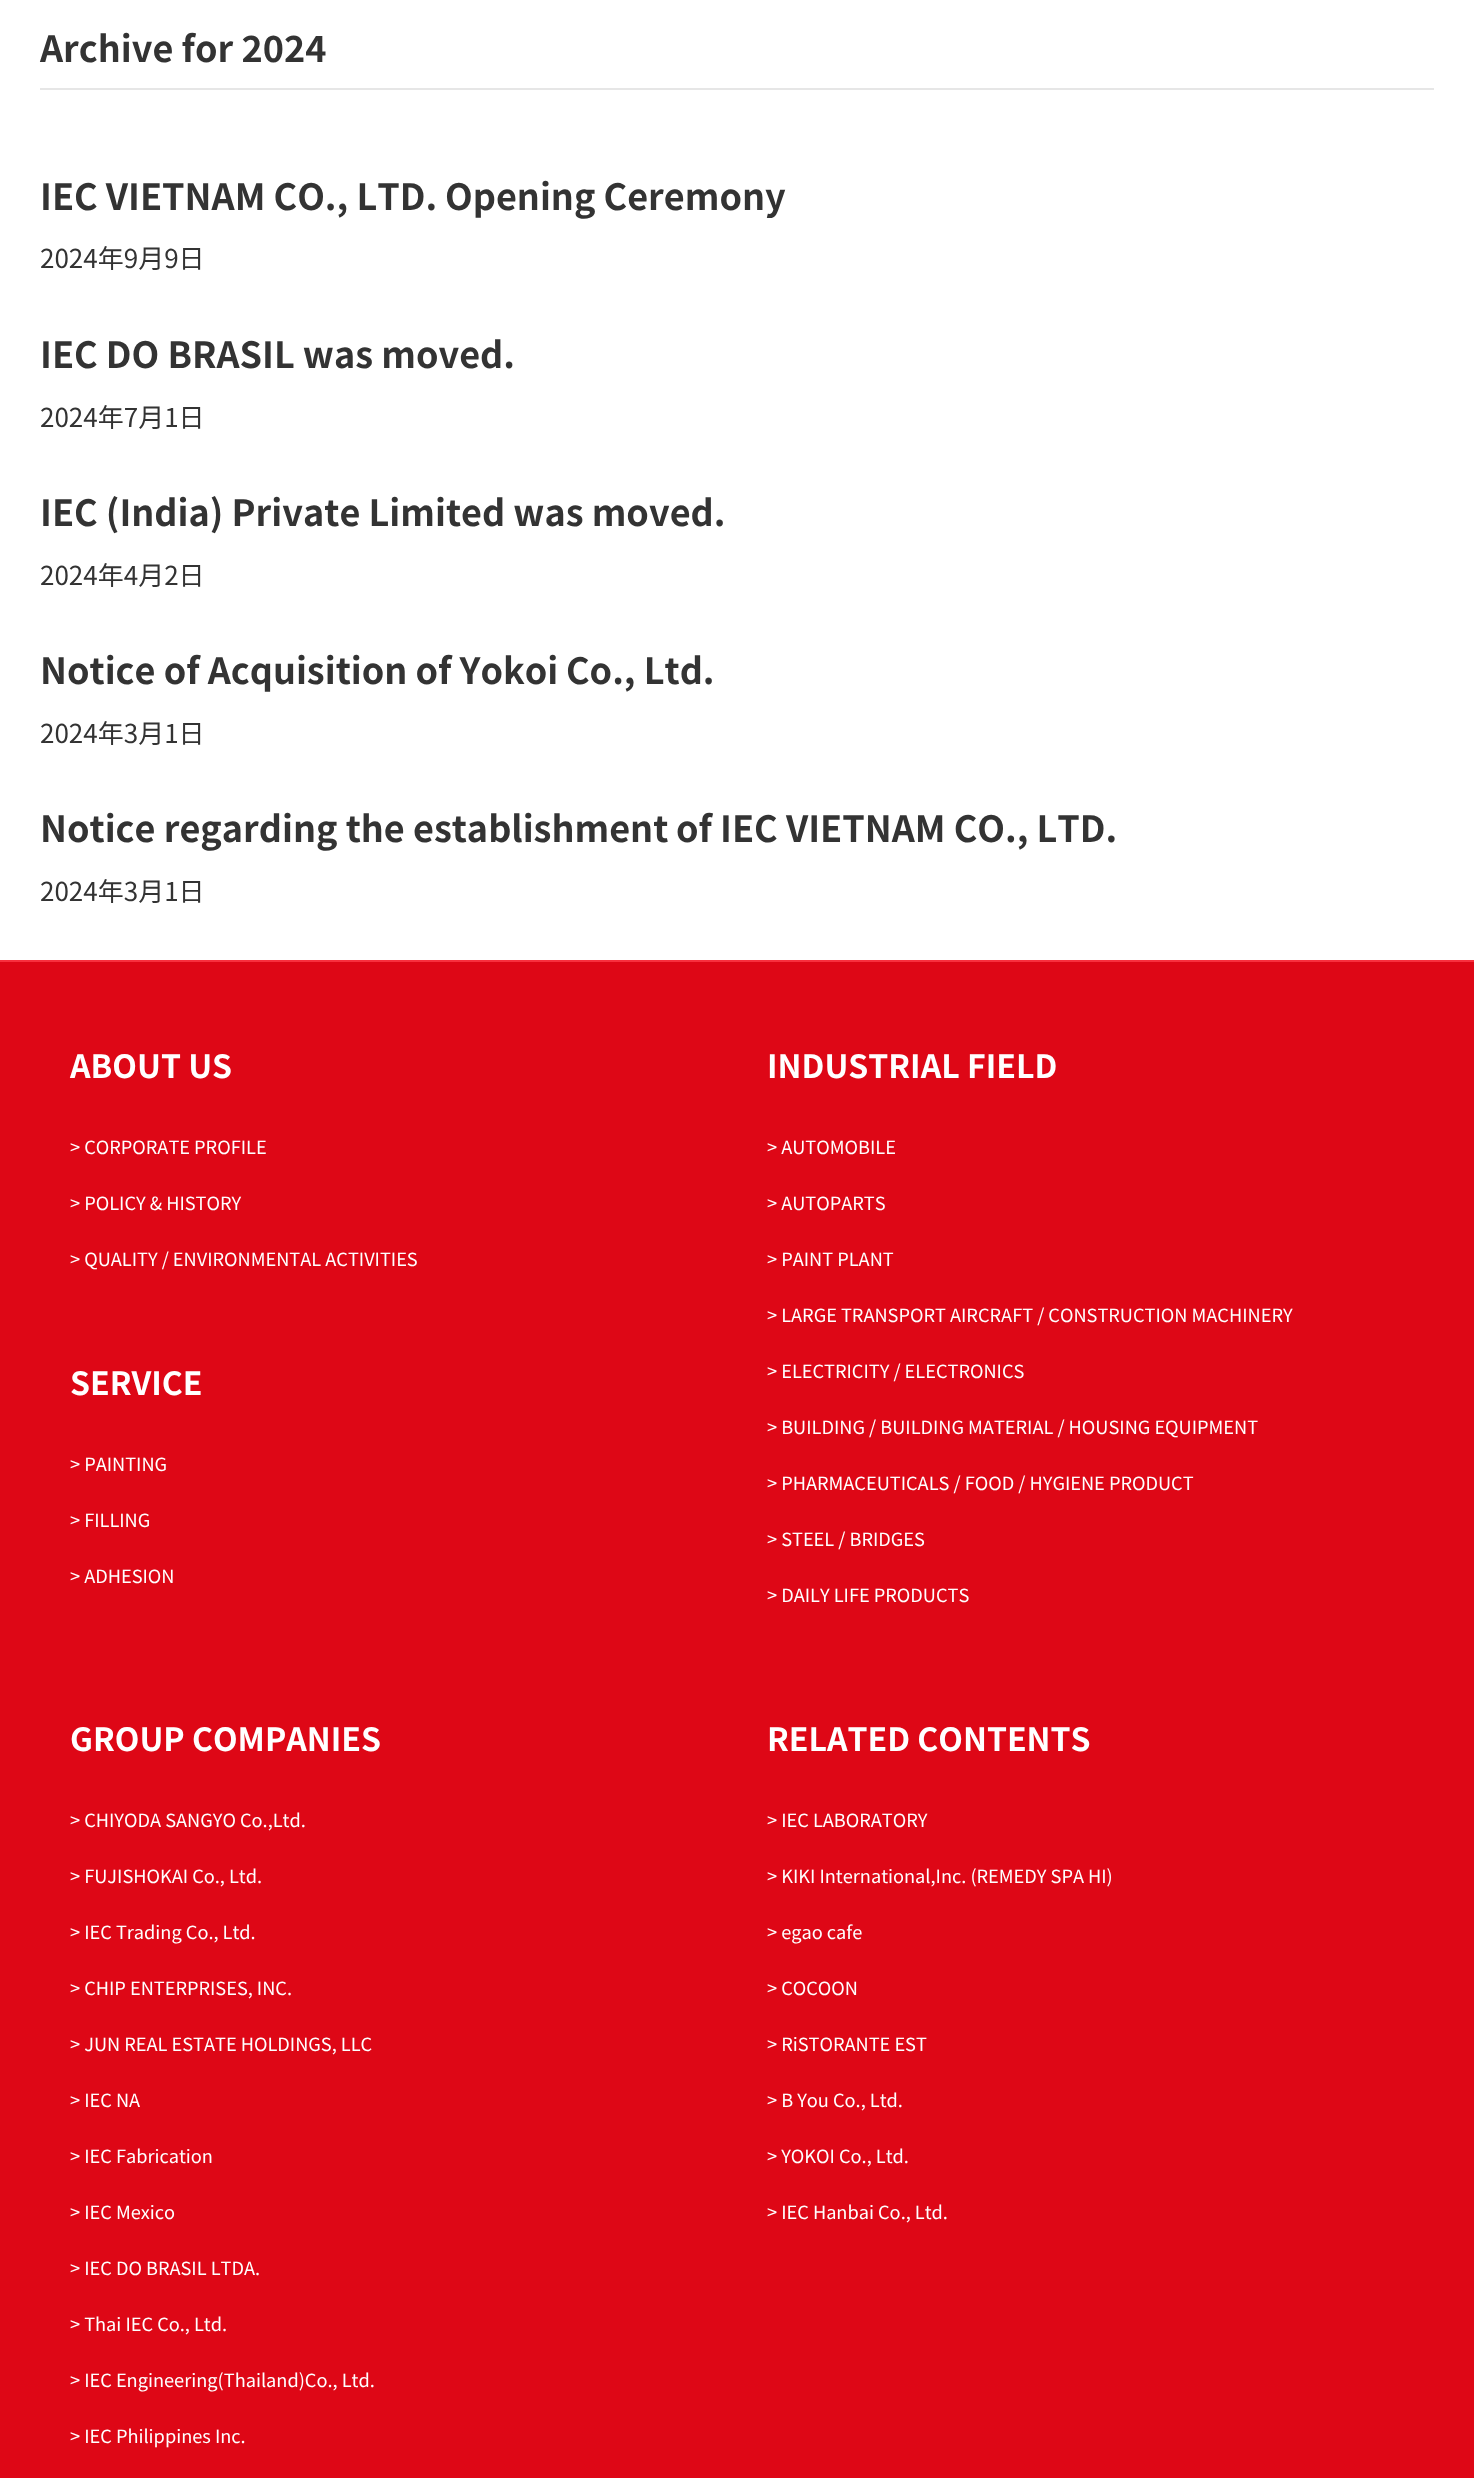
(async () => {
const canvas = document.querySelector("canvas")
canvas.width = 1474
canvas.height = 2478
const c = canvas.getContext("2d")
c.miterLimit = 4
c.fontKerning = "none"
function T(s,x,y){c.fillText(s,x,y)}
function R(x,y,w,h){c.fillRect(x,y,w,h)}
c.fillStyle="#fff"
R(0,0,1474,2478)
c.fillStyle="#e6e6e6"
R(40,88,1394,2)
c.font="bold 36px Noto Sans JP"
c.fillStyle="#333"
T("Archive for 2024",40,62)
T("IEC VIETNAM CO., LTD.",40,210)
T("Opening Ceremony",445,210)
c.font="26px Noto Sans JP"
T("2024年9月9日",40,268)
c.font="bold 36px Noto Sans JP"
T("IEC DO BRASIL was moved.",40,368)
c.font="26px Noto Sans JP"
T("2024年7月1日",40,427)
c.font="bold 36px Noto Sans JP"
T("IEC (India) Private Limited was moved.",40,526)
c.font="26px Noto Sans JP"
T("2024年4月2日",40,585)
c.font="bold 36px Noto Sans JP"
T("Notice of Acquisition of Yokoi",40,684)
T("Co., Ltd.",566,684)
c.font="26px Noto Sans JP"
T("2024年3月1日",40,743)
c.font="bold 36px Noto Sans JP"
T("Notice regarding the establishment",40,842)
T("of IEC VIETNAM CO., LTD.",676,842)
c.font="26px Noto Sans JP"
T("2024年3月1日",40,901)
c.fillStyle="#de0716"
R(0,962,1474,1516)
c.fillStyle="#f82f3d"
R(0,960,1474,2)
c.font="bold 32px Noto Sans JP"
c.fillStyle="#fff"
T("ABOUT US",70,1078)
c.font="18.2px Noto Sans JP"
T("> CORPORATE PROFILE",70,1154)
T("> POLICY & HISTORY",70,1210)
T("> QUALITY / ENVIRONMENTAL ACTIVITIES",70,1266)
c.font="bold 32px Noto Sans JP"
T("SERVICE",70,1395)
c.font="18.2px Noto Sans JP"
T("> PAINTING",70,1471)
T("> FILLING",70,1527)
T("> ADHESION",70,1583)
c.font="bold 32px Noto Sans JP"
T("INDUSTRIAL FIELD",767,1078)
c.font="18.2px Noto Sans JP"
T("> AUTOMOBILE",767,1154)
T("> AUTOPARTS",767,1210)
T("> PAINT PLANT",767,1266)
T("> LARGE TRANSPORT AIRCRAFT / CONSTRUCTION MACHINERY",767,1322)
T("> ELECTRICITY / ELECTRONICS",767,1378)
T("> BUILDING / BUILDING MATERIAL / HOUSING EQUIPMENT",767,1434)
T("> PHARMACEUTICALS / FOOD / HYGIENE PRODUCT",767,1490)
T("> STEEL / BRIDGES",767,1546)
T("> DAILY LIFE PRODUCTS",767,1602)
c.font="bold 32px Noto Sans JP"
T("GROUP COMPANIES",70,1751)
c.font="18.2px Noto Sans JP"
T("> CHIYODA SANGYO Co.,Ltd.",70,1827)
T("> FUJISHOKAI Co., Ltd.",70,1883)
T("> IEC Trading Co., Ltd.",70,1939)
T("> CHIP ENTERPRISES, INC.",70,1995)
T("> JUN REAL ESTATE HOLDINGS, LLC",70,2051)
T("> IEC NA",70,2107)
T("> IEC Fabrication",70,2163)
T("> IEC Mexico",70,2219)
T("> IEC DO BRASIL LTDA.",70,2275)
T("> Thai IEC Co., Ltd.",70,2331)
T("> IEC Engineering(Thailand)Co., Ltd.",70,2387)
T("> IEC Philippines Inc.",70,2443)
c.font="bold 32px Noto Sans JP"
T("RELATED CONTENTS",767,1751)
c.font="18.2px Noto Sans JP"
T("> IEC LABORATORY",767,1827)
T("> KIKI International,Inc. (REMEDY SPA HI)",767,1883)
T("> egao cafe",767,1939)
T("> COCOON",767,1995)
T("> RiSTORANTE EST",767,2051)
T("> B You Co., Ltd.",767,2107)
T("> YOKOI Co., Ltd.",767,2163)
T("> IEC Hanbai Co., Ltd.",767,2219)
})()
